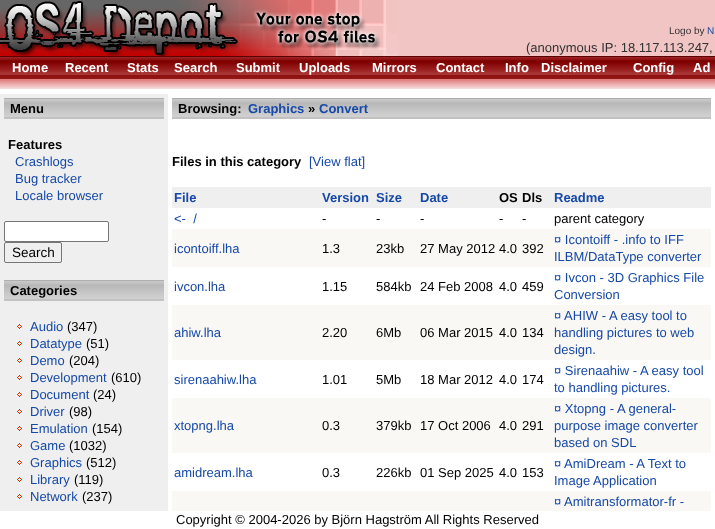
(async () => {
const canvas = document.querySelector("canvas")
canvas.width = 715
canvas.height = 529
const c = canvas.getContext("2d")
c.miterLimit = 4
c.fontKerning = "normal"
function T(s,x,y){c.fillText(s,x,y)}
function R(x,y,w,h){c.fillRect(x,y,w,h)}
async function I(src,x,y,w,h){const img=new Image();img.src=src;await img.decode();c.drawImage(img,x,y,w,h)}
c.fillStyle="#fff"
R(0,0,715,529)
c.fillStyle="#f1c5c4"
R(398,0,317,56)
await I("1.png",0,0,398,56)
c.font="10px Liberation Sans"
c.fillStyle="#333"
T("Logo by",669,34)
c.fillStyle="#1649a7"
T("N",707,34)
c.font="13px Liberation Sans"
c.fillStyle="#333"
T("(anonymous IP: 18.117.113.247,",526,52)
await I("2.png",0,56,715,23)
c.font="bold 13px Liberation Sans"
c.fillStyle="#fff"
T("Home",12,72)
T("Recent",65,72)
T("Stats",127,72)
T("Search",174,72)
T("Submit",236,72)
T("Uploads",299,72)
T("Mirrors",372,72)
T("Contact",436,72)
T("Info",505,72)
T("Disclaimer",541,72)
T("Config",633,72)
T("Ad",693,72)
c.fillStyle="#e18080"
R(0,79,715,1)
await I("3.png",0,80,715,9)
c.fillStyle="#efefef"
R(0,94,168,417)
await I("4.png",4,98,160,21)
c.fillStyle="#000"
T("Menu",10,113)
T("Features",8,149)
c.font="13px Liberation Sans"
c.fillStyle="#1649a7"
T("Crashlogs",15,166)
T("Bug tracker",15,183)
T("Locale browser",15,200)
c.fillStyle="#fff"
c.beginPath()
c.roundRect(4.5,221.5,104,20,1.5)
c.fill()
c.strokeStyle="#767676"
c.stroke()
c.beginPath()
c.roundRect(4.5,242.5,57,20,1.5)
c.stroke()
c.font="13.5px Liberation Sans"
c.fillStyle="#000"
T("Search",12,257)
await I("4.png",4,280,160,21)
c.font="bold 13px Liberation Sans"
T("Categories",10,295)
await I("5.png",17,324,5,5)
c.font="13px Liberation Sans"
c.fillStyle="#1649a7"
T("Audio",30,331)
c.fillStyle="#000"
T("(347)",67,331)
await I("5.png",17,341,5,5)
c.fillStyle="#1649a7"
T("Datatype",30,348)
c.fillStyle="#000"
T("(51)",86,348)
await I("5.png",17,358,5,5)
c.fillStyle="#1649a7"
T("Demo",30,365)
c.fillStyle="#000"
T("(204)",69,365)
await I("5.png",17,375,5,5)
c.fillStyle="#1649a7"
T("Development",30,382)
c.fillStyle="#000"
T("(610)",111,382)
await I("5.png",17,392,5,5)
c.fillStyle="#1649a7"
T("Document",30,399)
c.fillStyle="#000"
T("(24)",93,399)
await I("5.png",17,409,5,5)
c.fillStyle="#1649a7"
T("Driver",30,416)
c.fillStyle="#000"
T("(98)",69,416)
await I("5.png",17,426,5,5)
c.fillStyle="#1649a7"
T("Emulation",30,433)
c.fillStyle="#000"
T("(154)",92,433)
await I("5.png",17,443,5,5)
c.fillStyle="#1649a7"
T("Game",30,450)
c.fillStyle="#000"
T("(1032)",69,450)
await I("5.png",17,460,5,5)
c.fillStyle="#1649a7"
T("Graphics",30,467)
c.fillStyle="#000"
T("(512)",86,467)
await I("5.png",17,477,5,5)
c.fillStyle="#1649a7"
T("Library",30,484)
c.fillStyle="#000"
T("(119)",74,484)
await I("5.png",17,494,5,5)
c.fillStyle="#1649a7"
T("Network",30,501)
c.fillStyle="#000"
T("(237)",82,501)
await I("6.png",172,98,539,21)
c.font="bold 13px Liberation Sans"
T("Browsing:",178,113)
c.fillStyle="#1649a7"
T("Graphics",248,113)
c.fillStyle="#000"
T("»",308,113)
c.fillStyle="#1649a7"
T("Convert",319,113)
c.fillStyle="#000"
T("Files in this category",172,166)
c.font="13px Liberation Sans"
c.fillStyle="#1649a7"
T("[View flat]",309,166)
c.fillStyle="#efefef"
R(172,187,539,21)
c.font="bold 13px Liberation Sans"
c.fillStyle="#1649a7"
T("File",174,202)
T("Version",322,202)
T("Size",376,202)
T("Date",420,202)
c.fillStyle="#000"
T("OS",499,202)
T("Dls",522,202)
c.fillStyle="#1649a7"
T("Readme",554,202)
c.font="13px Liberation Sans"
T("<-  /",174,223)
c.fillStyle="#000"
T("-",322,223)
T("-",376,223)
T("-",420,223)
T("-",499,223)
T("-",522,223)
T("parent category",554,223)
c.fillStyle="#faf8f5"
R(172,229,539,38)
c.fillStyle="#1649a7"
T("icontoiff.lha",174,253)
c.fillStyle="#000"
T("1.3",322,253)
T("23kb",376,253)
T("27 May 2012",420,253)
T("4.0",499,253)
T("392",522,253)
c.fillStyle="#1649a7"
T("¤ Icontoiff - .info to IFF",554,244)
T("ILBM/DataType converter",554,261)
T("ivcon.lha",174,291)
c.fillStyle="#000"
T("1.15",322,291)
T("584kb",376,291)
T("24 Feb 2008",420,291)
T("4.0",499,291)
T("459",522,291)
c.fillStyle="#1649a7"
T("¤ Ivcon - 3D Graphics File",554,282)
T("Conversion",554,299)
c.fillStyle="#faf8f5"
R(172,305,539,55)
c.fillStyle="#1649a7"
T("ahiw.lha",174,337)
c.fillStyle="#000"
T("2.20",322,337)
T("6Mb",376,337)
T("06 Mar 2015",420,337)
T("4.0",499,337)
T("134",522,337)
c.fillStyle="#1649a7"
T("¤ AHIW - A easy tool to",554,320)
T("handling pictures to web",554,337)
T("design.",554,354)
T("sirenaahiw.lha",174,384)
c.fillStyle="#000"
T("1.01",322,384)
T("5Mb",376,384)
T("18 Mar 2012",420,384)
T("4.0",499,384)
T("174",522,384)
c.fillStyle="#1649a7"
T("¤ Sirenaahiw - A easy tool",554,375)
T("to handling pictures.",554,392)
c.fillStyle="#faf8f5"
R(172,398,539,55)
c.fillStyle="#1649a7"
T("xtopng.lha",174,430)
c.fillStyle="#000"
T("0.3",322,430)
T("379kb",376,430)
T("17 Oct 2006",420,430)
T("4.0",499,430)
T("291",522,430)
c.fillStyle="#1649a7"
T("¤ Xtopng - A general-",554,413)
T("purpose image converter",554,430)
T("based on SDL",554,447)
T("amidream.lha",174,477)
c.fillStyle="#000"
T("0.3",322,477)
T("226kb",376,477)
T("01 Sep 2025",420,477)
T("4.0",499,477)
T("153",522,477)
c.fillStyle="#1649a7"
T("¤ AmiDream - A Text to",554,468)
T("Image Application",554,485)
c.fillStyle="#faf8f5"
R(172,491,539,20)
c.fillStyle="#1649a7"
T("¤ Amitransformator-fr -",554,506)
c.fillStyle="#000"
T("Copyright © 2004-2026 by Björn Hagström All Rights Reserved",176,524)
})()
